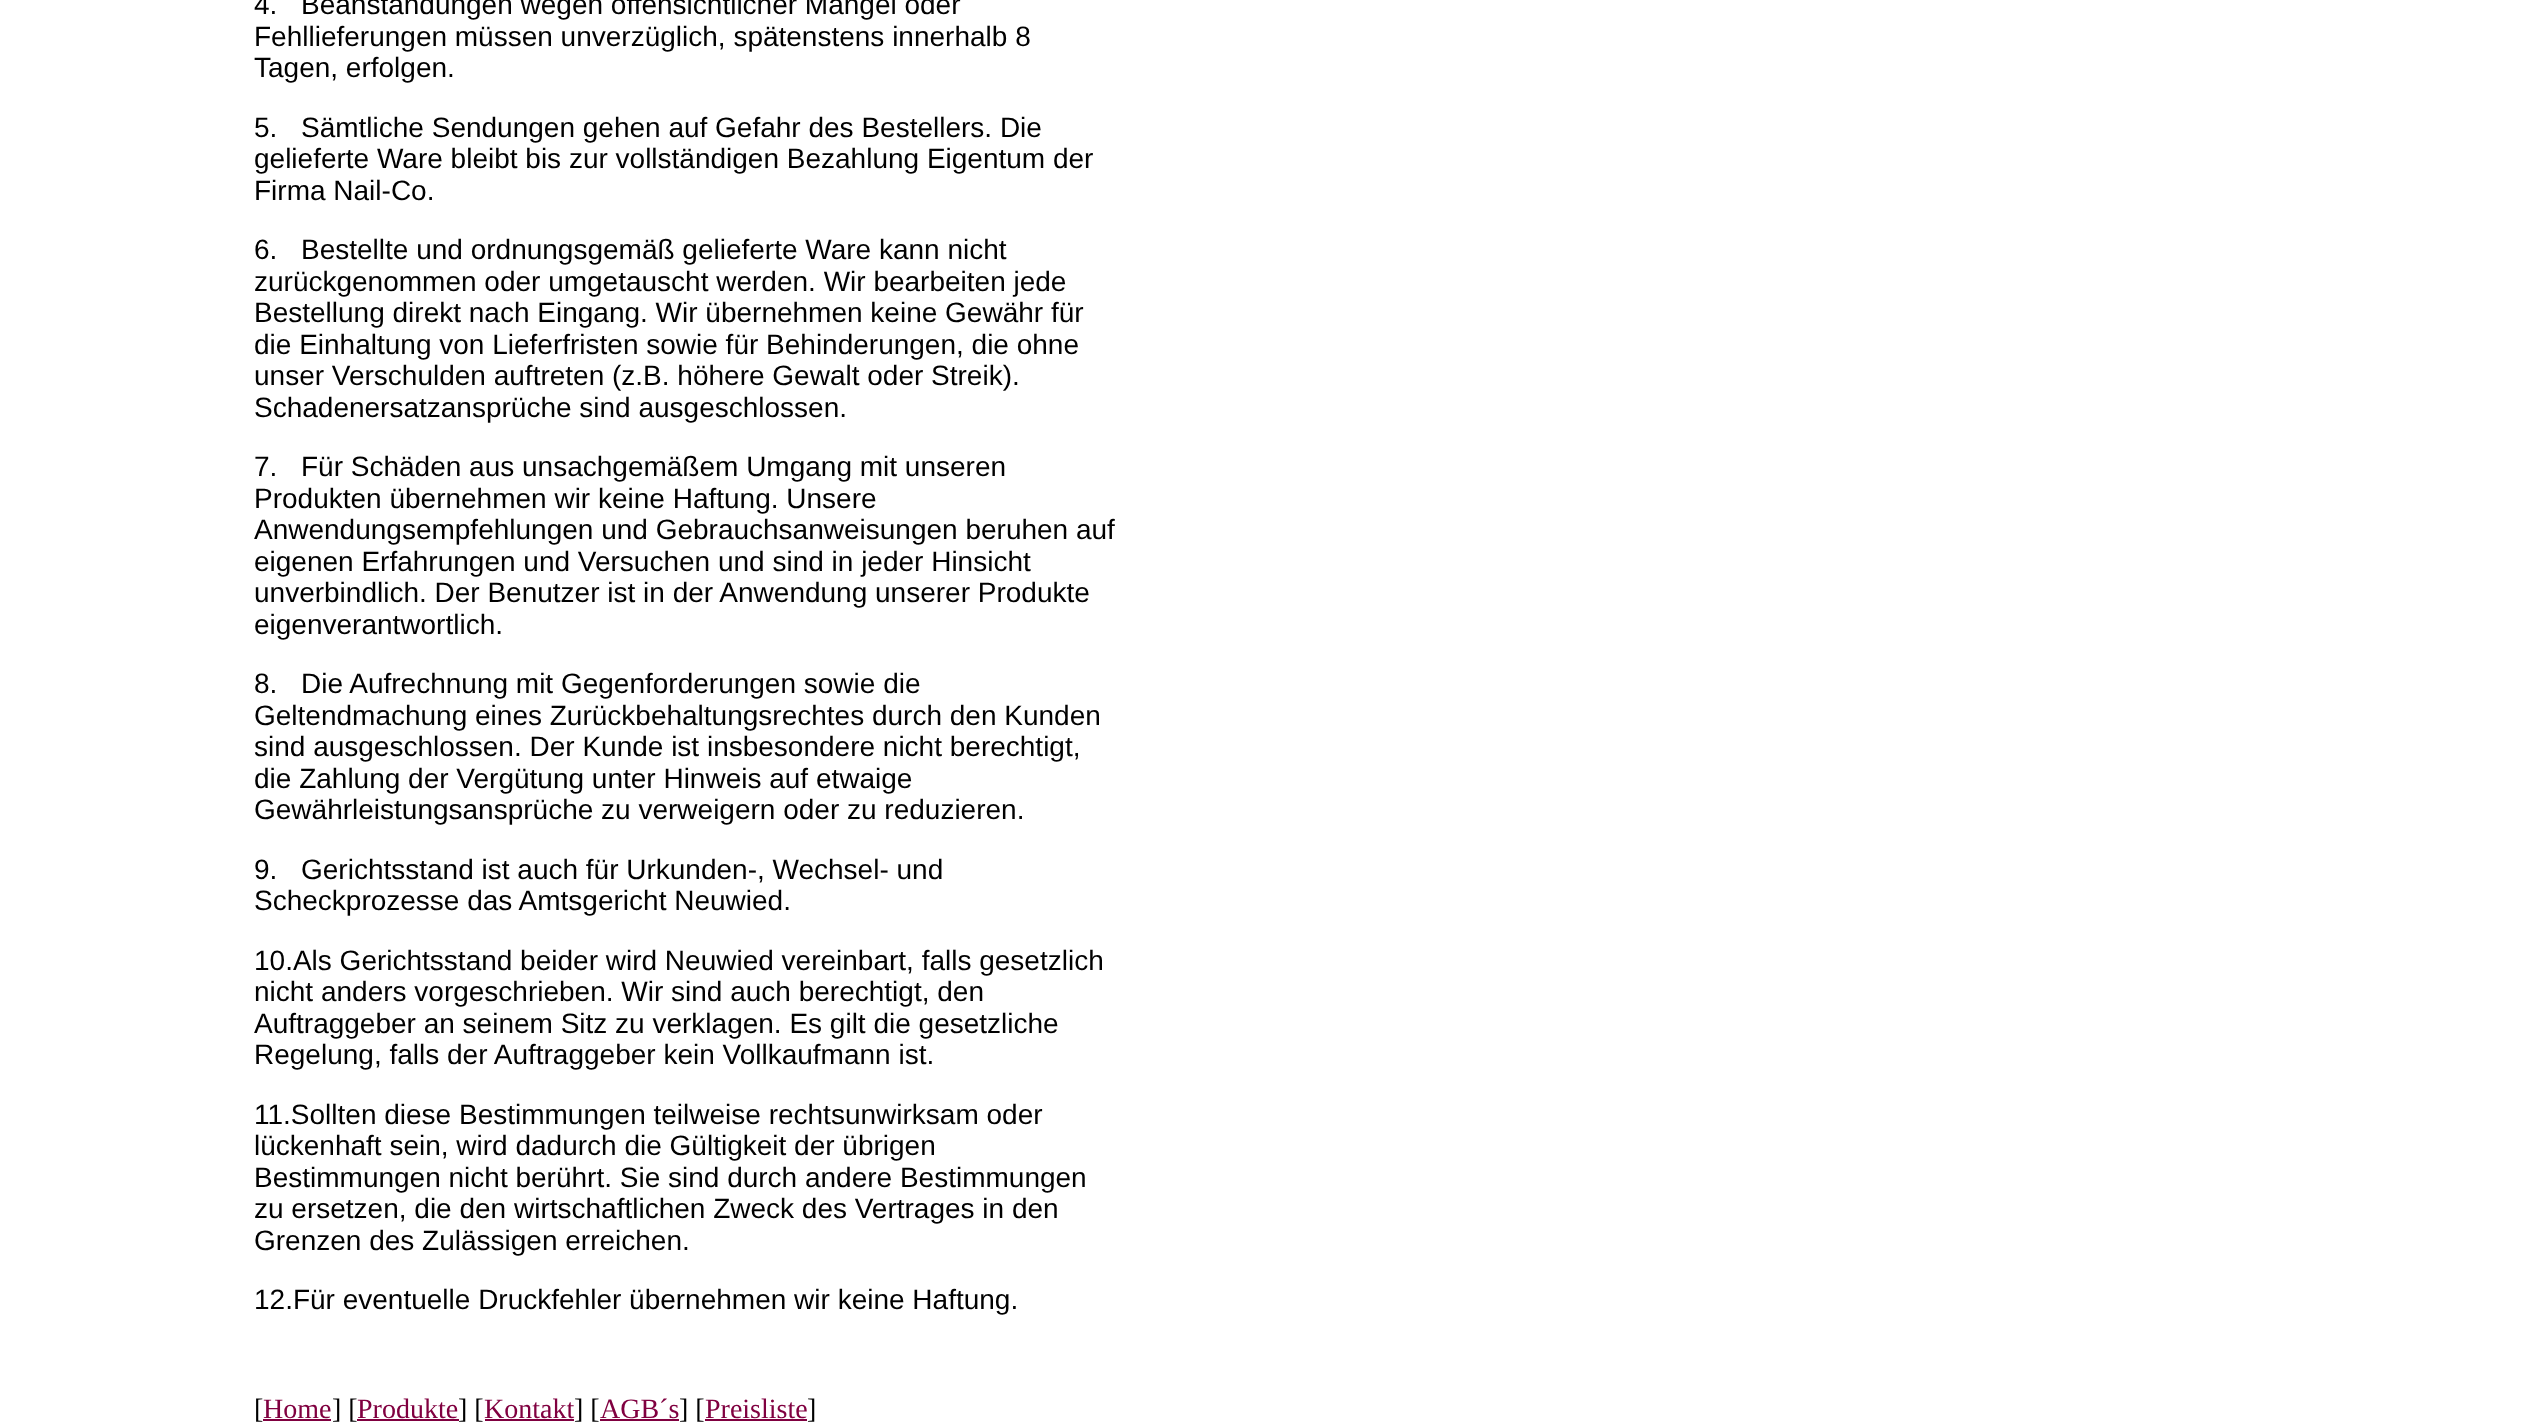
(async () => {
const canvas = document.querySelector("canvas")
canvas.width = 2537
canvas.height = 1423
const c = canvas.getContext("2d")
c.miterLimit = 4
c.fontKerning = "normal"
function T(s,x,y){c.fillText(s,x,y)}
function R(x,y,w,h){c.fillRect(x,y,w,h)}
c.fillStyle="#fff"
R(0,0,2537,1423)
c.font="28px Liberation Sans"
c.fillStyle="#000"
T("4.",254,14)
T("Beanstandungen wegen offensichtlicher Mängel oder",301,14)
T("Fehllieferungen müssen unverzüglich, spätenstens innerhalb 8",254,46)
T("Tagen, erfolgen.",254,77)
T("5.",254,137)
T("Sämtliche Sendungen gehen auf Gefahr des Bestellers. Die",301,137)
T("gelieferte Ware bleibt bis zur vollständigen Bezahlung Eigentum der",254,168)
T("Firma Nail-Co.",254,200)
T("6.",254,259)
T("Bestellte und ordnungsgemäß gelieferte Ware kann nicht",301,259)
T("zurückgenommen oder umgetauscht werden. Wir bearbeiten jede",254,291)
T("Bestellung direkt nach Eingang. Wir übernehmen keine Gewähr für",254,322)
T("die Einhaltung von Lieferfristen sowie für Behinderungen, die ohne",254,354)
T("unser Verschulden auftreten (z.B. höhere Gewalt oder Streik).",254,385)
T("Schadenersatzansprüche sind ausgeschlossen.",254,417)
T("7.",254,476)
T("Für Schäden aus unsachgemäßem Umgang mit unseren",301,476)
T("Produkten übernehmen wir keine Haftung. Unsere",254,508)
T("Anwendungsempfehlungen und Gebrauchsanweisungen beruhen auf",254,539)
T("eigenen Erfahrungen und Versuchen und sind in jeder Hinsicht",254,571)
T("unverbindlich. Der Benutzer ist in der Anwendung unserer Produkte",254,602)
T("eigenverantwortlich.",254,634)
T("8.",254,693)
T("Die Aufrechnung mit Gegenforderungen sowie die",301,693)
T("Geltendmachung eines Zurückbehaltungsrechtes durch den Kunden",254,725)
T("sind ausgeschlossen. Der Kunde ist insbesondere nicht berechtigt,",254,756)
T("die Zahlung der Vergütung unter Hinweis auf etwaige",254,788)
T("Gewährleistungsansprüche zu verweigern oder zu reduzieren.",254,819)
T("9.",254,879)
T("Gerichtsstand ist auch für Urkunden-, Wechsel- und",301,879)
T("Scheckprozesse das Amtsgericht Neuwied.",254,910)
T("10.Als Gerichtsstand beider wird Neuwied vereinbart, falls gesetzlich",254,970)
T("nicht anders vorgeschrieben. Wir sind auch berechtigt, den",254,1001)
T("Auftraggeber an seinem Sitz zu verklagen. Es gilt die gesetzliche",254,1033)
T("Regelung, falls der Auftraggeber kein Vollkaufmann ist.",254,1064)
T("11.Sollten diese Bestimmungen teilweise rechtsunwirksam oder",254,1124)
T("lückenhaft sein, wird dadurch die Gültigkeit der übrigen",254,1155)
T("Bestimmungen nicht berührt. Sie sind durch andere Bestimmungen",254,1187)
T("zu ersetzen, die den wirtschaftlichen Zweck des Vertrages in den",254,1218)
T("Grenzen des Zulässigen erreichen.",254,1250)
T("12.Für eventuelle Druckfehler übernehmen wir keine Haftung.",254,1309)
c.font="28px Liberation Serif"
T("[",254,1418)
c.fillStyle="#800040"
T("Home",263,1418)
R(263,1419,68,2)
c.fillStyle="#000"
T("] [",332,1418)
c.fillStyle="#800040"
T("Produkte",357,1418)
R(357,1419,102,2)
c.fillStyle="#000"
T("] [",458,1418)
c.fillStyle="#800040"
T("Kontakt",484,1418)
R(485,1419,89,2)
c.fillStyle="#000"
T("] [",574,1418)
c.fillStyle="#800040"
T("AGB´s",600,1418)
R(600,1419,79,2)
c.fillStyle="#000"
T("] [",679,1418)
c.fillStyle="#800040"
T("Preisliste",705,1418)
R(705,1419,102,2)
c.fillStyle="#000"
T("]",807,1418)
})()
